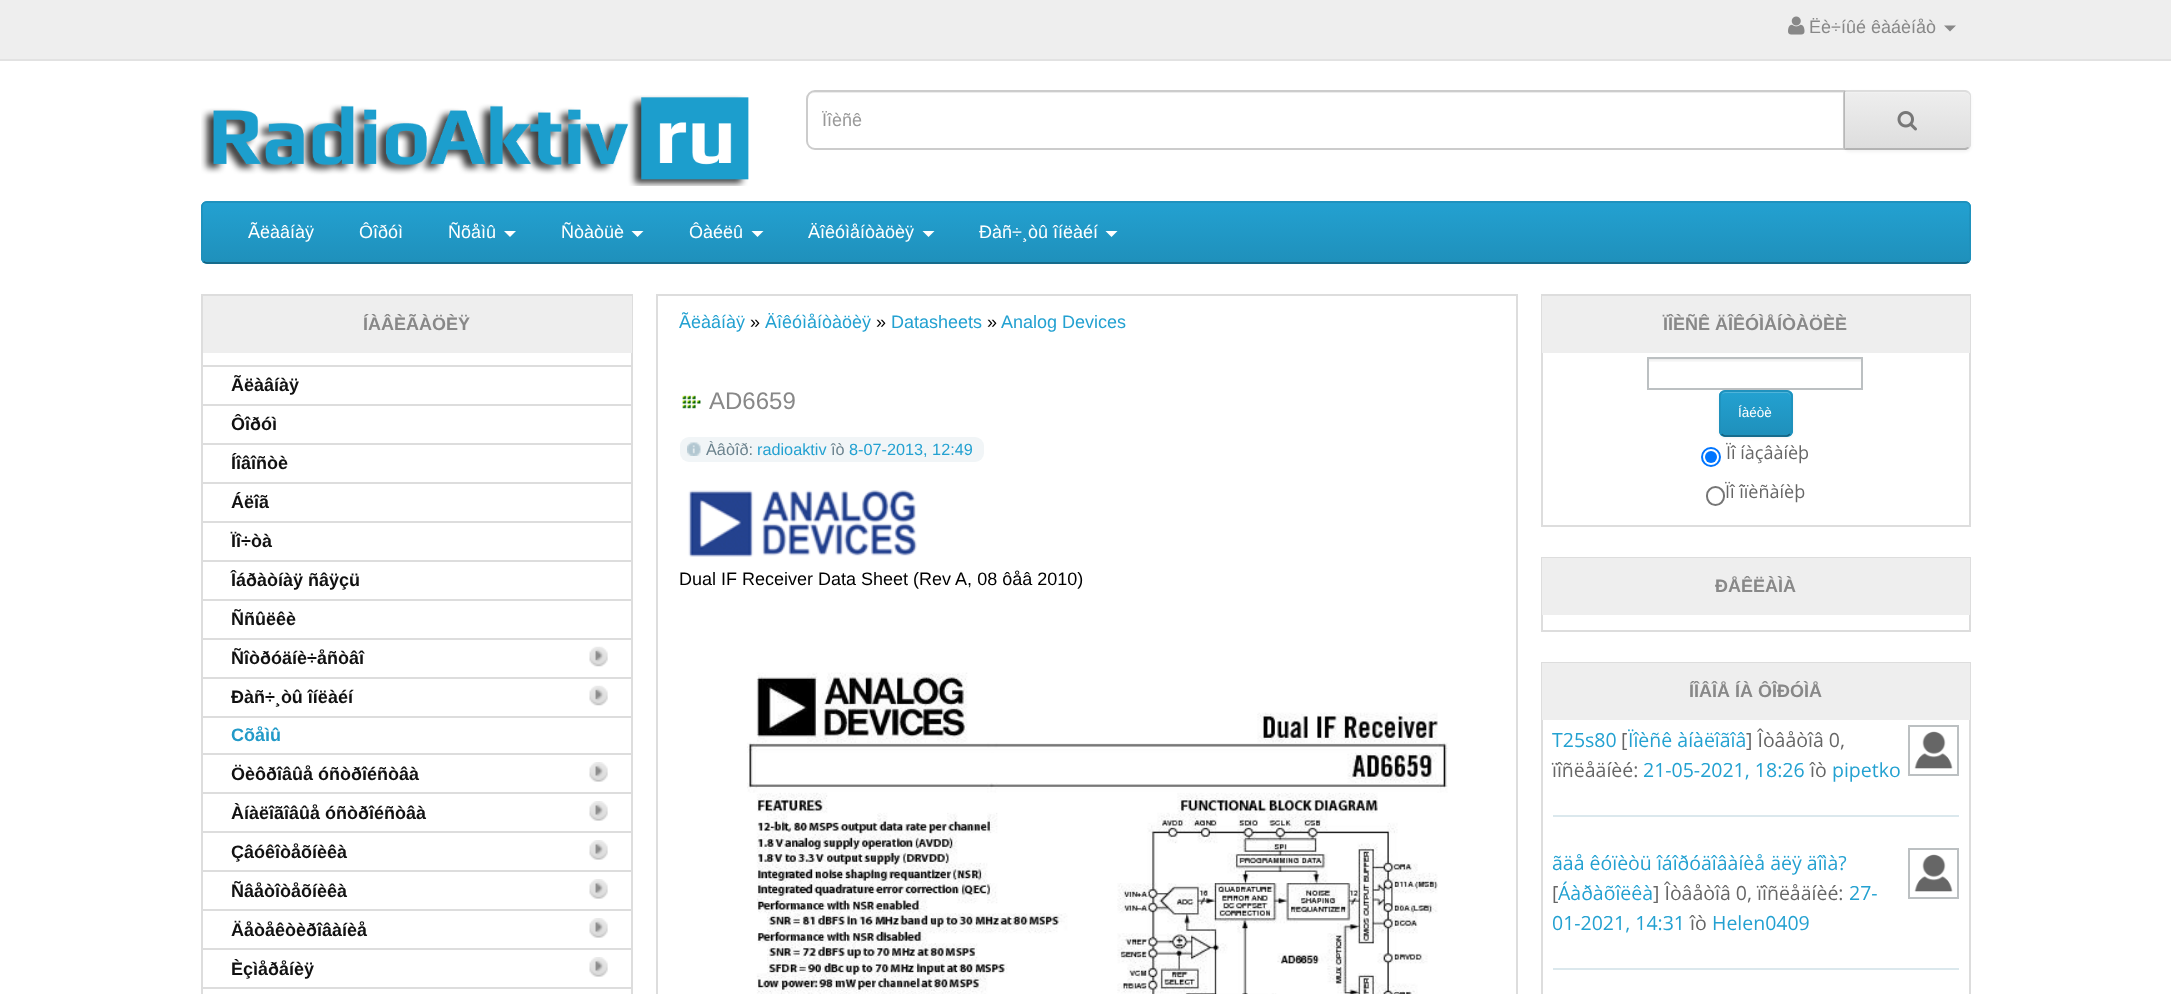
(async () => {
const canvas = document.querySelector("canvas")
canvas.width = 2171
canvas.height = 994
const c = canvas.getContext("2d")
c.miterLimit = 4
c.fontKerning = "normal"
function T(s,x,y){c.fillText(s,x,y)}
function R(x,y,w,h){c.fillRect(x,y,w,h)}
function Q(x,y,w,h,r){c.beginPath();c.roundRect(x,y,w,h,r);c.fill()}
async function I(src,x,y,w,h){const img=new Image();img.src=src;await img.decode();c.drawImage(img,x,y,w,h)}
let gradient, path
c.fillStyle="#fff"
R(0,0,2171,994)
c.fillStyle="#eee"
R(0,0,2171,59)
c.fillStyle="#e2e2e2"
R(0,59,2171,2)
await I("1.png",1788,16,17,19)
c.font="18px Liberation Sans"
c.fillStyle="#888"
T("Ëè÷íûé êàáèíåò",1809,33)
path = new Path2D("M1944 25.5h12l-6 6z")
c.fill(path)
await I("2.png",201,95,548,91)
c.fillStyle="#ececec"
path = new Path2D("M814 93h1030v-1h-1029c-4 0-8 4-8 8c0-4 3-7 7-7z")
c.fill(path)
c.beginPath()
c.roundRect(807,91,1037,58,[8,0,0,8])
c.strokeStyle="#ccc"
c.lineWidth=2
c.stroke()
c.fillStyle="#999"
T("Ïîèñê",822,126)
c.fillStyle="#0000000d"
c.filter="blur(1.5px)"
c.beginPath()
c.roundRect(1844,92,127,60,6)
c.fill()
c.filter="none"
c.fillStyle="#e7e7e7"
c.beginPath()
c.roundRect(1844,90,127,60,[0,6,6,0])
c.fill()
c.save()
c.beginPath()
c.roundRect(1844,90,127,60,[0,6,6,0])
c.clip()
gradient = c.createLinearGradient(1907,92,1907,149)
gradient.addColorStop(0,"#eee")
gradient.addColorStop(1,"#ddd")
c.fillStyle = gradient
R(1845,92,126,57)
c.restore()
c.fillStyle="#f1f1f1"
path = new Path2D("M1845 93h120c2 0 5 2 5 5v-1c0-3-2-5-5-5h-120z")
c.fill(path)
c.fillStyle="#ddd"
path = new Path2D("M1844 90l2 2h119l3 1l1-1c-1-1-3-2-4-2z")
c.fill(path)
path = new Path2D("M1971 144v-48c0-2-1-3-2-4l-1 1c1 1 2 2 2 3v48c0 1-1 2-2 3l1 1c1-1 2-2 2-4z")
c.fill(path)
c.fillStyle="#b3b3b3"
path = new Path2D("M1844 150h122l3-2l-1-1l-3 1h-119z")
c.fill(path)
c.fillStyle="#b7b7b7"
path = new Path2D("M1845 92h1l-2-2v60l2-2h-1z")
c.fill(path)
await I("3.png",1897,111,20,20)
c.fillStyle="#229ac8"
Q(201,201,1770,63,6)
c.save()
c.beginPath()
c.roundRect(201,201,1770,63,6)
c.clip()
gradient = c.createLinearGradient(1086,202,1086,263)
gradient.addColorStop(0,"#23a1d1")
gradient.addColorStop(1,"#1f90bb")
c.fillStyle = gradient
R(201,203,1770,60)
c.restore()
path = new Path2D("M1968.5 261.5c-1 1-2 1.5-3.5 1.5h-1758c-1.5 0-2.5-.5-3.5-1.5")
c.strokeStyle="#145e7a"
c.lineWidth=1.5
c.stroke(path)
path = new Path2D("M203.5 261.5c-3-2.5-1.5-9.5-1.5-12v-34c0-4-2-13.5 5-13.5h1758c7 0 5 9.5 5 13.5v34c0 2.5 1.5 9.5-1.5 12")
c.strokeStyle="#1f90bb"
c.stroke(path)
c.fillStyle="#fff"
T("Ãëàâíàÿ",248,238)
T("Ôîðóì",359,238)
T("Ñõåìû",448,238)
path = new Path2D("M504 231h12l-6 6z")
c.fill(path)
T("Ñòàòüè",561,238)
path = new Path2D("M631.5 231h12l-6 6z")
c.fill(path)
T("Ôàéëû",689,238)
path = new Path2D("M751.5 231h12l-6 6z")
c.fill(path)
T("Äîêóìåíòàöèÿ",808,238)
path = new Path2D("M922.5 231h12l-6 6z")
c.fill(path)
T("Ðàñ÷¸òû îíëàéí",979,238)
path = new Path2D("M1105.5 231h12l-6 6z")
c.fill(path)
c.strokeStyle="#ddd"
c.lineWidth=2
c.strokeRect(202,295,430,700)
c.fillStyle="#eee"
R(203,296,429,57)
c.font="bold 18px Liberation Sans"
c.fillStyle="#888"
T("ÍÀÂÈÃÀÖÈŸ",363,330)
c.fillStyle="#ddd"
R(203,365,429,2)
c.fillStyle="#111"
T("Ãëàâíàÿ",231,391)
c.fillStyle="#ddd"
R(203,404,429,2)
c.fillStyle="#111"
T("Ôîðóì",231,430)
c.fillStyle="#ddd"
R(203,443,429,2)
c.fillStyle="#111"
T("Íîâîñòè",231,469)
c.fillStyle="#ddd"
R(203,482,429,2)
c.fillStyle="#111"
T("Áëîã",231,508)
c.fillStyle="#ddd"
R(203,521,429,2)
c.fillStyle="#111"
T("Ïî÷òà",231,547)
c.fillStyle="#ddd"
R(203,560,429,2)
c.fillStyle="#111"
T("Îáðàòíàÿ ñâÿçü",231,586)
c.fillStyle="#ddd"
R(203,599,429,2)
c.fillStyle="#111"
T("Ññûëêè",231,625)
c.fillStyle="#ddd"
R(203,638,429,2)
c.fillStyle="#111"
T("Ñîòðóäíè÷åñòâî",231,664)
await I("4.png",589,646,19,21)
c.fillStyle="#ddd"
R(203,677,429,2)
c.fillStyle="#111"
T("Ðàñ÷¸òû îíëàéí",231,703)
await I("4.png",589,685,19,21)
c.fillStyle="#ddd"
R(203,716,429,2)
c.fillStyle="#229ac8"
T("Cõåìû",231,741)
c.fillStyle="#ddd"
R(203,753,429,2)
c.fillStyle="#111"
T("Öèôðîâûå óñòðîéñòâà",231,780)
await I("5.png",589,762,19,20)
c.fillStyle="#ddd"
R(203,792,429,2)
c.fillStyle="#111"
T("Àíàëîãîâûå óñòðîéñòâà",231,819)
await I("5.png",589,801,19,20)
c.fillStyle="#ddd"
R(203,831,429,2)
c.fillStyle="#111"
T("Çâóêîòåõíèêà",231,858)
await I("5.png",589,840,19,20)
c.fillStyle="#ddd"
R(203,870,429,2)
c.fillStyle="#111"
T("Ñâåòîòåõíèêà",231,897)
await I("5.png",589,879,19,20)
c.fillStyle="#ddd"
R(203,909,429,2)
c.fillStyle="#111"
T("Äåòåêòèðîâàíèå",231,936)
await I("5.png",589,918,19,20)
c.fillStyle="#ddd"
R(203,948,429,2)
c.fillStyle="#111"
T("Èçìåðåíèÿ",231,975)
await I("5.png",589,957,19,20)
c.fillStyle="#ddd"
R(203,987,429,2)
c.strokeRect(657,295,860,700)
c.font="18px Liberation Sans"
c.fillStyle="#23a1d1"
T("Ãëàâíàÿ",679,328)
c.fillStyle="#000"
T("»",750,328)
c.fillStyle="#23a1d1"
T("Äîêóìåíòàöèÿ",765,328)
c.fillStyle="#000"
T("»",876,328)
c.fillStyle="#23a1d1"
T("Datasheets",891,328)
c.fillStyle="#000"
T("»",987,328)
c.fillStyle="#23a1d1"
T("Analog Devices",1001,328)
await I("6.png",682,395,19,14)
c.font="24px Liberation Sans"
c.fillStyle="#888"
T("AD6659",709,409)
c.fillStyle="#f1f5f7"
Q(680,437,304,25,9)
await I("7.png",687,442,14,14)
c.font="16.25px Liberation Sans"
c.fillStyle="#6c838e"
T("Àâòîð:",706,455)
c.fillStyle="#23a1d1"
T("radioaktiv",757,455)
c.fillStyle="#6c838e"
T("îò",831,455)
c.fillStyle="#23a1d1"
T("8-07-2013, 12:49",849,455)
await I("8.png",688,490,229,67)
c.font="18px Liberation Sans"
c.fillStyle="#000"
T("Dual IF Receiver Data Sheet (Rev A, 08 ôåâ 2010)",679,585)
await I("9.png",747,672,701,322)
c.strokeRect(1542,295,428,231)
c.fillStyle="#eee"
R(1542,296,428,57)
c.font="bold 18px Liberation Sans"
c.fillStyle="#888"
T("ÏÎÈÑÊ ÄÎÊÓÌÅÍÒÀÖÈÈ",1663,330)
await I("10.png",1649,359,212,3)
c.strokeStyle="#bcc0c2"
c.strokeRect(1648,358,214,31)
c.fillStyle="#0000000d"
c.filter="blur(1.5px)"
c.beginPath()
c.roundRect(1719,392,74,46,6)
c.fill()
c.filter="none"
c.fillStyle="#229ac8"
Q(1719,390,74,47,6)
c.save()
c.beginPath()
c.roundRect(1719,390,74,47,6)
c.clip()
gradient = c.createLinearGradient(1756,392,1756,435)
gradient.addColorStop(0,"#23a1d1")
gradient.addColorStop(1,"#1f90bb")
c.fillStyle = gradient
R(1719,392,74,43)
c.restore()
c.fillStyle="#4fb4da"
path = new Path2D("M1725 393h61c3 0 5 2 5 5v-1c0-3-2-5-5-5h-60c-2 0-3 1-4 2z")
c.fill(path)
path = new Path2D("M1790 434c-1 1-2 2-3.5 2h-61.5c-1.5 0-2.5-1-3.5-2")
c.strokeStyle="#145e7a"
c.lineWidth=1.5
c.stroke(path)
path = new Path2D("M1721.5 434c-1-1-1.5-2-1.5-3.5v-34.5c0-1.5 .5-2.5 1.5-3.5c1-1 2-1.5 3.5-1.5h61.5c1.5 0 2.5 .5 3.5 1.5c1 1 2 2 2 3.5v34.5c0 1.5-1 2.5-2 3.5")
c.strokeStyle="#1f90bb"
c.stroke(path)
c.font="13.5px Liberation Sans"
c.fillStyle="#fff"
T("Íàéòè",1738,417)
c.beginPath()
c.arc(1711,457,9,0,7)
c.strokeStyle="#0075ff"
c.lineWidth=2
c.stroke()
c.fillStyle="#0075ff"
c.beginPath()
c.arc(1711,457,6,0,7)
c.fill()
c.font="18px Open Sans"
c.fillStyle="#666"
T("Ïî íàçâàíèþ",1726,459)
c.beginPath()
c.roundRect(1707,487,17,18,8.5)
c.strokeStyle="#767676"
c.stroke()
T("Ïî îïèñàíèþ",1725,498)
c.strokeStyle="#ddd"
c.strokeRect(1542,558,428,73)
c.fillStyle="#eee"
R(1542,558,428,57)
c.font="bold 18px Liberation Sans"
c.fillStyle="#888"
T("ÐÅÊËÀÌÀ",1715,592)
c.strokeRect(1542,663,428,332)
c.fillStyle="#eee"
R(1542,663,428,57)
c.fillStyle="#888"
T("ÍÎÂÎÅ ÍÀ ÔÎÐÓÌÅ",1689,697)
c.font="19.5px Open Sans"
c.fillStyle="#23a1d1"
T("T25s80",1552,747)
c.fillStyle="#666"
T("[",1621,747)
c.fillStyle="#23a1d1"
T("Ïîèñê àíàëîãîâ",1628,747)
c.fillStyle="#666"
T("] Îòâåòîâ 0,",1746,747)
c.strokeStyle="#bcc0c2"
c.strokeRect(1909,726,49,49)
await I("11.png",1914,731,39,38)
T("ïîñëåäíèé:",1552,777)
c.fillStyle="#23a1d1"
T("21-05-2021, 18:26",1643,777)
c.fillStyle="#666"
T("îò",1810,777)
c.fillStyle="#23a1d1"
T("pipetko",1832,777)
c.fillStyle="#dbe8ed"
R(1553,815,406,2)
c.fillStyle="#23a1d1"
T("ãäå êóïèòü îáîðóäîâàíèå äëÿ äîìà?",1552,870)
c.strokeRect(1909,849,49,49)
await I("11.png",1914,854,39,38)
c.fillStyle="#666"
T("[",1552,900)
c.fillStyle="#23a1d1"
T("Áàðàõîëêà",1558,900)
c.fillStyle="#666"
T("] Îòâåòîâ 0, ïîñëåäíèé:",1653,900)
c.fillStyle="#23a1d1"
T("27-",1849,900)
T("01-2021, 14:31",1552,930)
c.fillStyle="#666"
T("îò",1690,930)
c.fillStyle="#23a1d1"
T("Helen0409",1712,930)
c.fillStyle="#dbe8ed"
R(1553,968,406,2)
})()
